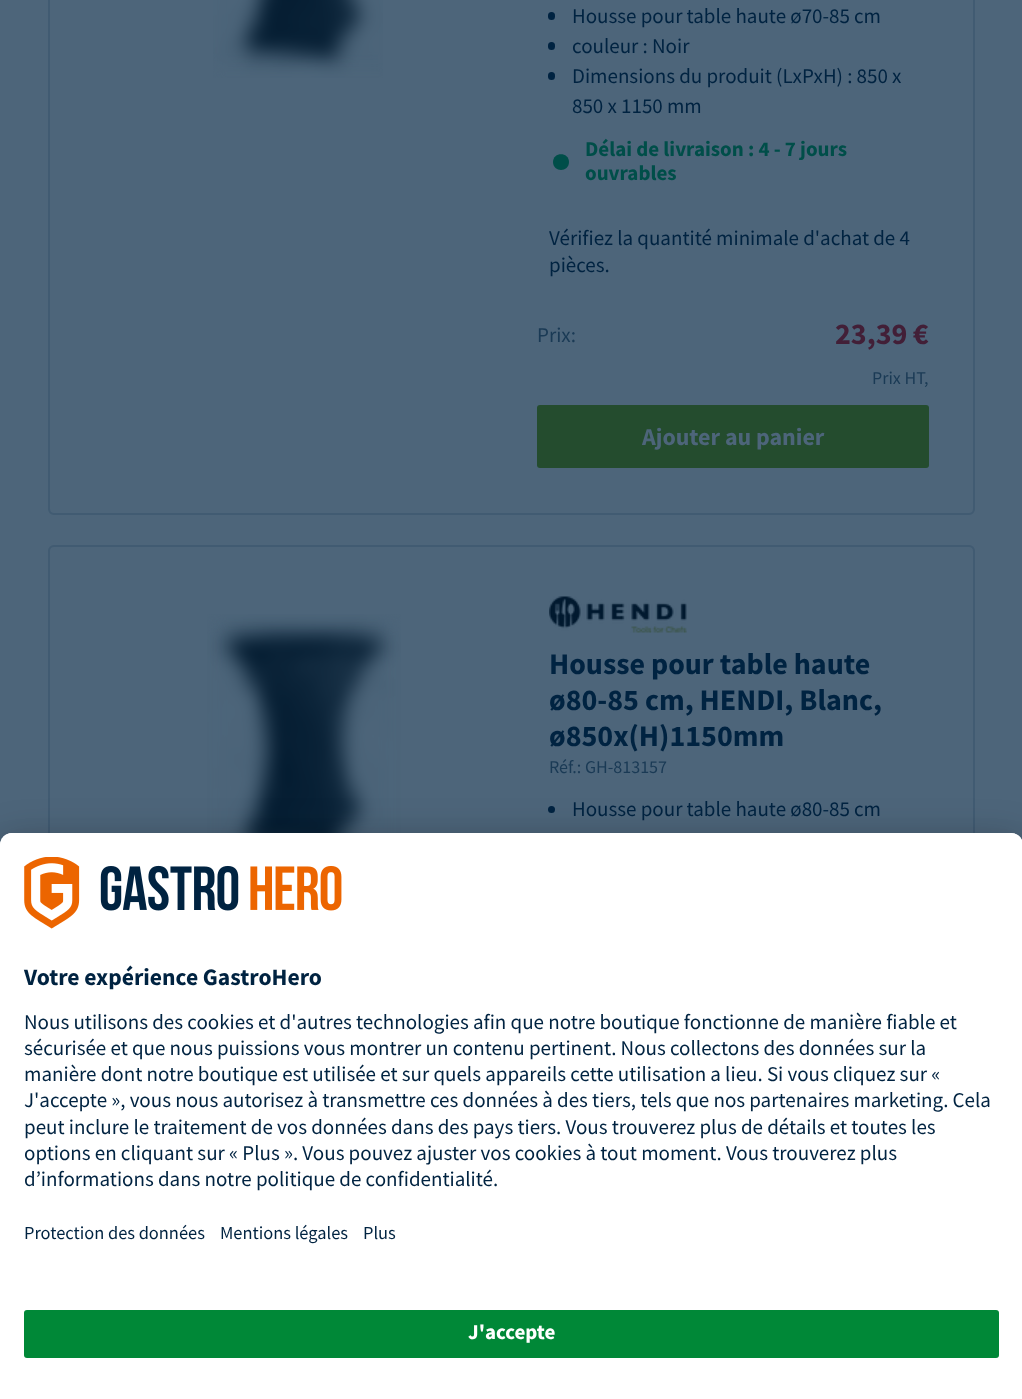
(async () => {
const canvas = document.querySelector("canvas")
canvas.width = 1022
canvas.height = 1399
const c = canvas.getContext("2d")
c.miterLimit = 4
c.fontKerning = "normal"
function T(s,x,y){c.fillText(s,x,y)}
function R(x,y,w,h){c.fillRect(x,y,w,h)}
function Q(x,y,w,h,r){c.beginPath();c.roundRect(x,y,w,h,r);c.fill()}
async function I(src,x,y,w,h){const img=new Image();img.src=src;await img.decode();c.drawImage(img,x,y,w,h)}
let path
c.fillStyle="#4d657a"
R(0,0,1022,1399)
c.beginPath()
c.roundRect(49,-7,925,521,5)
c.strokeStyle="#415b72"
c.lineWidth=2
c.stroke()
await I("1.png",213,0,170,78)
c.fillStyle="#002341"
Q(548,12,7,8,3.5)
c.font="21px Source Sans Pro"
T("Housse pour table haute ø70-85 cm",572,23)
Q(548,42,7,8,3.5)
T("couleur : Noir",572,53)
Q(548,72,7,8,3.5)
T("Dimensions du produit (LxPxH) : 850 x",572,83)
T("850 x 1150 mm",572,113)
c.fillStyle="#004e49"
path = new Path2D("M553 162c0 10.5 16 10.5 16 0c0-10.5-16-10.5-16 0z")
c.fill(path)
c.font="bold 21px Source Sans Pro"
T("Délai de livraison : 4 - 7 jours",585,156)
T("ouvrables",585,180)
c.font="21px Source Sans Pro"
c.fillStyle="#002341"
T("Vérifiez la quantité minimale d'achat de 4",549,245)
T("pièces.",549,272)
c.fillStyle="#1a3a55"
T("Prix:",537,342)
c.font="bold 30px Source Sans Pro"
c.fillStyle="#421f37"
T("23,39 €",835,344)
c.font="18px Source Sans Pro"
c.fillStyle="#1a3a55"
T("Prix HT,",872,384)
c.fillStyle="#244c2e"
Q(537,405,392,63,3)
c.font="bold 24px Source Sans Pro"
c.fillStyle="#4d657a"
T("Ajouter au panier",642,445)
c.beginPath()
c.roundRect(49,546,925,761,5)
c.stroke()
await I("2.png",207,614,194,219)
await I("3.png",549,596,138,37)
c.font="bold 30px Source Sans Pro"
c.fillStyle="#002341"
T("Housse pour table haute",549,674)
T("ø80-85 cm, HENDI, Blanc,",549,710)
T("ø850x(H)1150mm",549,746)
c.font="18px Source Sans Pro"
c.fillStyle="#1a3a55"
T("Réf.: GH-813157",549,773)
c.fillStyle="#002341"
c.beginPath()
c.arc(551.5,809.5,3.5,0,7)
c.fill()
c.font="21px Source Sans Pro"
T("Housse pour table haute ø80-85 cm",572,816)
c.fillStyle="#0000004d"
c.filter="blur(21px)"
c.beginPath()
c.roundRect(0,863,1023,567,12)
c.fill()
c.filter="none"
c.fillStyle="#00000038"
c.filter="blur(19.5px)"
c.beginPath()
c.roundRect(0,840,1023,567,12)
c.fill()
c.filter="none"
c.fillStyle="#fff"
path = new Path2D("M12 833h999c6.5 0 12 5.5 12 12v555h-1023v-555c0-6.5 5.5-12 12-12z")
c.fill(path)
path = new Path2D("M12 833h999c6.5 0 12 5.5 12 12v447h-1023v-447c0-6.5 5.5-12 12-12z")
c.fill(path)
await I("4.png",24,857,318,72)
c.font="bold 23.6px Source Sans Pro"
c.fillStyle="#002341"
T("Votre expérience GastroHero",24,985)
c.font="21px Source Sans Pro"
T("Nous utilisons des cookies et d'autres technologies afin que notre boutique fonctionne de manière fiable et",24,1029)
T("sécurisée et que nous puissions vous montrer un contenu pertinent. Nous collectons des données sur la",24,1055)
T("manière dont notre boutique est utilisée et sur quels appareils cette utilisation a lieu. Si vous cliquez sur «",24,1081)
T("J'accepte », vous nous autorisez à transmettre ces données à des tiers, tels que nos partenaires marketing. Cela",24,1107)
T("peut inclure le traitement de vos données dans des pays tiers. Vous trouverez plus de détails et toutes les",24,1134)
T("options en cliquant sur « Plus ». Vous pouvez ajuster vos cookies à tout moment. Vous trouverez plus",24,1160)
T("d’informations dans notre politique de confidentialité.",24,1186)
c.font="18.4px Source Sans Pro"
T("Protection des données",24,1239)
T("Mentions légales",220,1239)
T("Plus",363,1239)
c.fillStyle="#008837"
Q(24,1310,975,48,3)
c.font="bold 21px Source Sans Pro"
c.fillStyle="#fff"
T("J'accepte",468,1339)
})()
